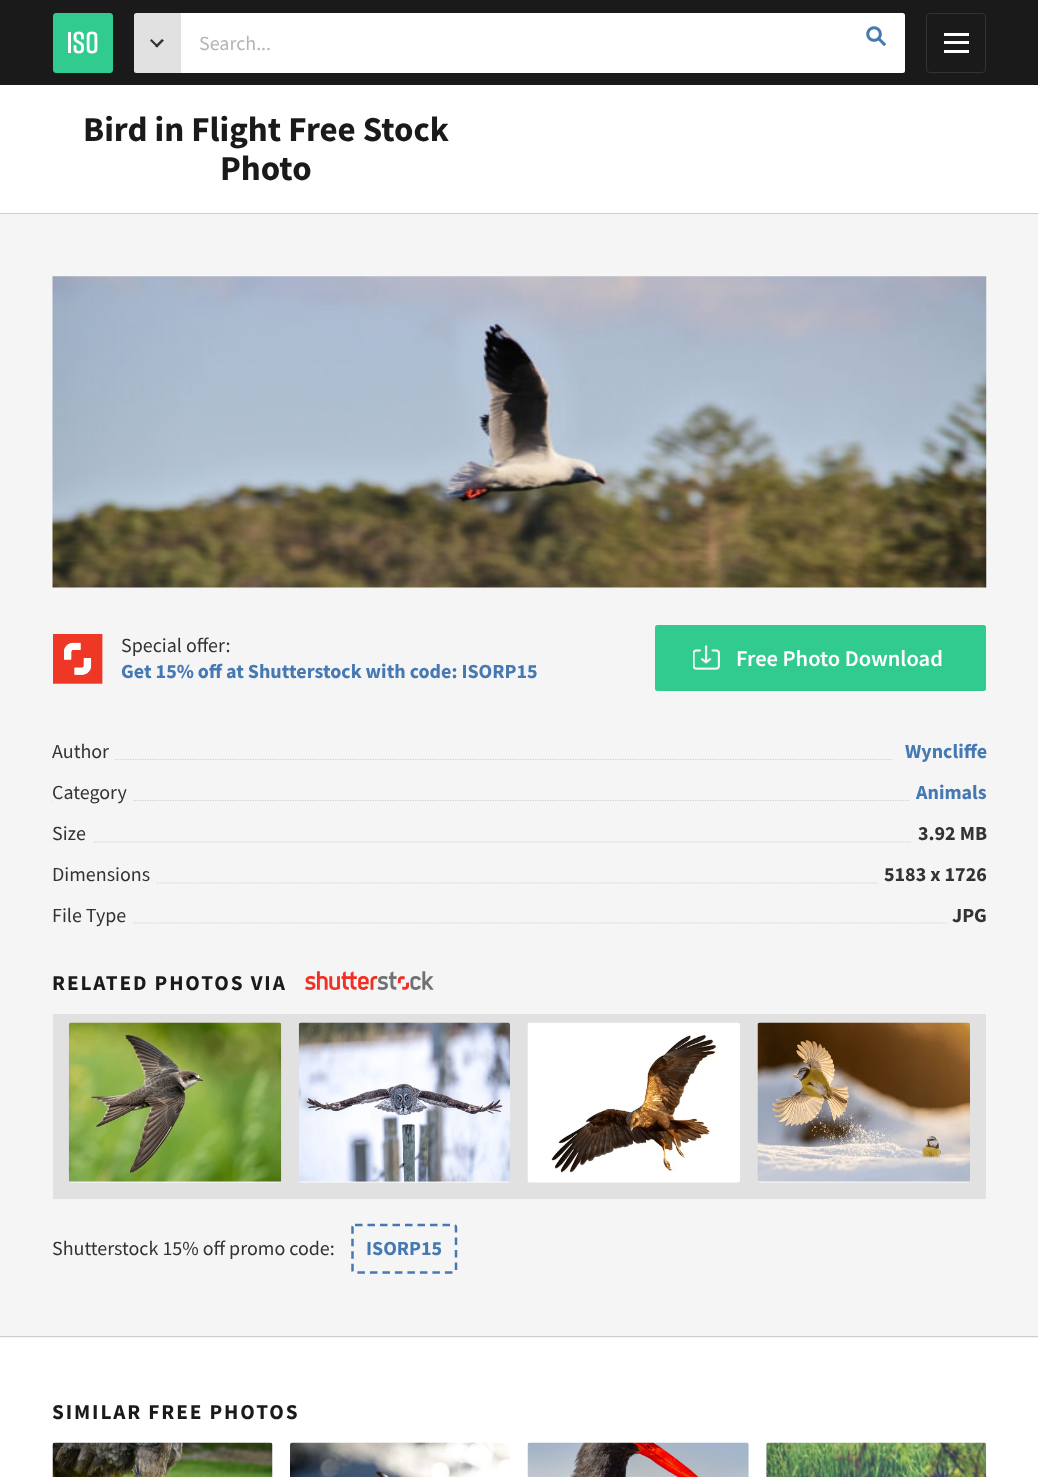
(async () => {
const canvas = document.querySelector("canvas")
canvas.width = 1038
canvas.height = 1477
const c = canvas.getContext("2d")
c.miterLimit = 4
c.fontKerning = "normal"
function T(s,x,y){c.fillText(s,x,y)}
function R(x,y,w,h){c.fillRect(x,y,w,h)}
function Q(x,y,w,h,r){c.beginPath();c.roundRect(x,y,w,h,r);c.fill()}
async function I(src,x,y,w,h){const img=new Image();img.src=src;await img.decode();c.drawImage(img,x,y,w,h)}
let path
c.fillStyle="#fff"
R(0,0,1038,1477)
c.fillStyle="#1a1a1a"
R(0,0,1038,85)
await I("1.png",53,13,60,60)
c.fillStyle="#e1e1e1"
c.beginPath()
c.roundRect(134,13,47,60,[2.5,0,0,2.5])
c.fill()
c.fillStyle="#333"
path = new Path2D("M164 40.5l-7 7l-2-1.5l7-7z")
c.fill(path)
path = new Path2D("M158.5 46l-1.5 1.5l-7-7l1.5-1.5z")
c.fill(path)
c.fillStyle="#fff"
R(181,13,667,60)
c.font="20px Source Sans Pro"
c.fillStyle="#b5b5b5"
T("Search...",199,50)
c.fillStyle="#fff"
c.beginPath()
c.roundRect(848,13,57,60,[0,2.5,2.5,0])
c.fill()
await I("2.png",866,26,20,20)
c.beginPath()
c.roundRect(926.5,13.5,59,59,3.5)
c.strokeStyle="#333"
c.stroke()
R(944,41,25,3)
R(944,33,25,3)
R(944,50,25,3)
c.font="bold 35px Source Sans Pro"
c.fillStyle="#1a1a1a"
T("Bird in Flight Free Stock",83,141)
T("Photo",220,180)
c.fillStyle="#f5f5f5"
R(0,214,1038,1124)
c.fillStyle="#cecece"
R(0,213,1038,1)
R(0,1336,1038,1)
await I("3.png",52,276,935,312)
await I("4.png",53,634,50,50)
c.font="20px Source Sans Pro"
c.fillStyle="#333"
T("Special offer:",121,652)
c.font="bold 20px Source Sans Pro"
c.fillStyle="#4679b2"
T("Get 15% off at Shutterstock with code: ISORP15",121,678)
c.fillStyle="#32cb8f"
Q(655,625,331,66,2.5)
await I("5.png",693,645,27,25)
c.font="600 22.5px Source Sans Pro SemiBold"
c.fillStyle="#fff"
T("Free Photo Download",736,666)
path = new Path2D("M52.5 759.5h933.5")
c.strokeStyle="#cecece"
c.lineWidth=1.2
c.setLineDash([1.25,1.25])
c.stroke(path)
c.fillStyle="#f5f5f5"
R(53,758,61,3)
c.font="20px Source Sans Pro"
c.fillStyle="#333"
T("Author",52,758)
c.fillStyle="#f5f5f5"
R(893,758,93,3)
c.font="bold 20px Source Sans Pro"
c.fillStyle="#4679b2"
T("Wyncliffe",905,758)
path = new Path2D("M52.5 800.5h933.5")
c.stroke(path)
c.fillStyle="#f5f5f5"
R(53,799,80,3)
c.font="20px Source Sans Pro"
c.fillStyle="#333"
T("Category",52,799)
c.fillStyle="#f5f5f5"
R(910,799,76,3)
c.font="bold 20px Source Sans Pro"
c.fillStyle="#4679b2"
T("Animals",916,799)
path = new Path2D("M52.5 842h933.5")
c.stroke(path)
c.fillStyle="#f5f5f5"
R(53,841,40,2)
c.font="20px Source Sans Pro"
c.fillStyle="#333"
T("Size",52,840)
c.fillStyle="#f5f5f5"
R(911,841,75,2)
c.font="bold 20px Source Sans Pro"
c.fillStyle="#333"
T("3.92 MB",918,840)
path = new Path2D("M52.5 883h933.5")
c.stroke(path)
c.fillStyle="#f5f5f5"
R(53,882,103,2)
c.font="20px Source Sans Pro"
c.fillStyle="#333"
T("Dimensions",52,881)
c.fillStyle="#f5f5f5"
R(878,882,108,2)
c.font="bold 20px Source Sans Pro"
c.fillStyle="#333"
T("5183 x 1726",884,881)
path = new Path2D("M52.5 923h933.5")
c.stroke(path)
c.fillStyle="#f5f5f5"
R(53,922,80,2)
c.font="20px Source Sans Pro"
c.fillStyle="#333"
T("File Type",52,922)
c.fillStyle="#f5f5f5"
R(946,922,40,2)
c.font="bold 20px Source Sans Pro"
c.fillStyle="#333"
T("JPG",952,922)
c.letterSpacing="1.9px"
c.font="bold 21.25px Source Sans Pro"
c.fillStyle="#1a1a1a"
T("RELATED PHOTOS VIA",52,990)
await I("6.png",305,971,129,19)
c.fillStyle="#e1e1e1"
R(53,1014,933,185)
await I("7.png",68,1022,214,161)
await I("8.png",298,1022,212,161)
await I("9.png",527,1022,213,161)
await I("10.png",757,1022,213,161)
c.letterSpacing="0px"
c.font="20px Source Sans Pro"
c.fillStyle="#333"
T("Shutterstock 15% off promo code:",52,1255)
path = new Path2D("M355 1225h99c1 0 2 1 2 2.5v42.5c0 1.5-1 2.5-2 2.5h-99c-1.5 0-2.5-1-2.5-2.5v-42.5c0-1.5 1-2.5 2.5-2.5z")
c.strokeStyle="#4679b2"
c.lineWidth=2.5
c.setLineDash([7.5,5])
c.stroke(path)
c.font="bold 20px Source Sans Pro"
c.fillStyle="#4679b2"
T("ISORP15",366,1255)
c.letterSpacing="1.9px"
c.font="bold 21.25px Source Sans Pro"
c.fillStyle="#1a1a1a"
T("SIMILAR FREE PHOTOS",52,1419)
await I("11.png",52,1442,221,35)
await I("12.png",290,1442,220,35)
await I("13.png",527,1442,222,35)
await I("14.png",766,1442,221,35)
})()
